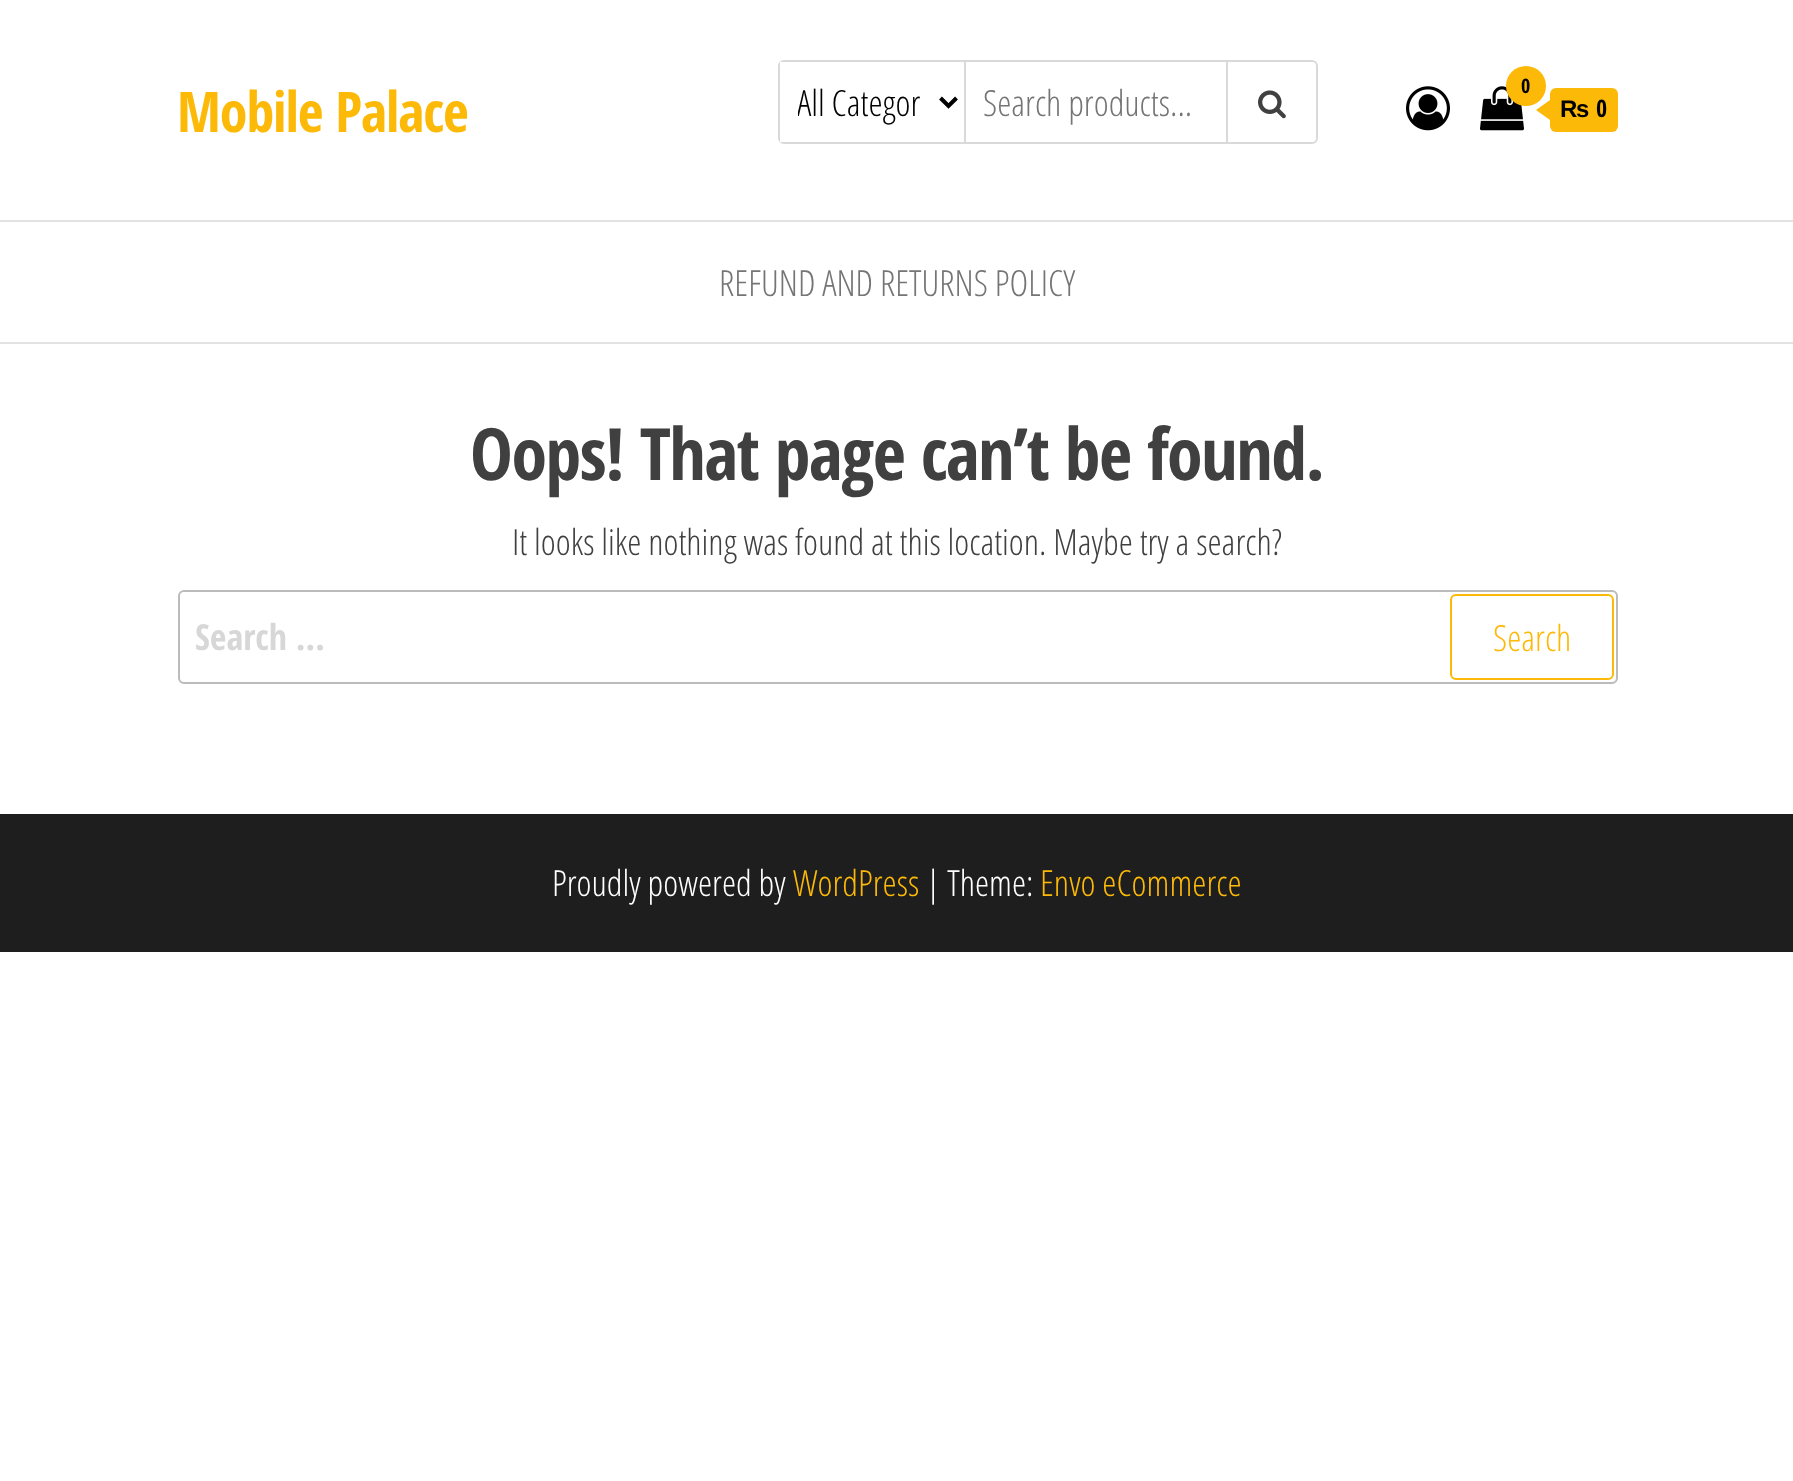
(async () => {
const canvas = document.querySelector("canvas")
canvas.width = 1793
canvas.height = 1481
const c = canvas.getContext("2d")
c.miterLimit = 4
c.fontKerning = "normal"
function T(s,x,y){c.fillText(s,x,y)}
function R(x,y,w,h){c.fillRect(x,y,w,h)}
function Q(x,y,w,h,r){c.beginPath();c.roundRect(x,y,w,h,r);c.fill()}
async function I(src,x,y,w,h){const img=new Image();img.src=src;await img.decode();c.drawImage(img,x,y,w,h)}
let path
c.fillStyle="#fff"
R(0,0,1793,1481)
c.letterSpacing="-1.1px"
c.font="bold 56px Open Sans Condensed"
c.fillStyle="#fdb907"
T("Mobile Palace",177,132)
c.beginPath()
c.roundRect(779,61,538,82,5)
c.strokeStyle="#d9d9d9"
c.lineWidth=2
c.stroke()
c.fillStyle="#fff"
R(780,62,3,80)
c.fillStyle="#d9d9d9"
R(964,62,2,80)
path = new Path2D("M940.5 98l8 8l8-8")
c.strokeStyle="#000"
c.lineWidth=4
c.stroke(path)
c.save()
c.beginPath()
c.rect(798,76,124,52)
c.clip()
c.letterSpacing="0px"
c.font="300 36px Open Sans Condensed"
c.fillStyle="#000"
T("All Categor",797,116)
c.restore()
c.fillStyle="#fff"
R(1313,62,1,80)
c.letterSpacing="0px"
c.font="300 36px Open Sans Condensed"
c.fillStyle="#757575"
T("Search products...",983,116)
c.fillStyle="#d9d9d9"
R(1226,62,2,80)
await I("1.png",1258,90,28,29)
await I("2.png",1406,86,44,45)
await I("3.png",1480,86,44,45)
c.fillStyle="#fdb907"
c.beginPath()
c.arc(1526,86,20,0,7)
c.fill()
c.font="bold 20px Open Sans Condensed"
c.fillStyle="#000"
T("0",1521,93)
c.fillStyle="#fdb907"
Q(1550,88,68,44,6)
path = new Path2D("M1550 100v20l-14-10z")
c.fill(path)
c.font="bold 24px Liberation Sans"
c.fillStyle="#000"
T("₨",1560,117)
c.font="bold 24px Open Sans Condensed"
T("0",1596,117)
c.fillStyle="#e2e2e2"
R(0,220,1793,2)
R(0,342,1793,2)
c.font="300 36px Open Sans Condensed"
c.fillStyle="#757575"
T("REFUND AND RETURNS POLICY",719,296)
c.letterSpacing="-1.45px"
c.font="bold 72px Open Sans Condensed"
c.fillStyle="#404040"
T("Oops! That page can’t be found.",470,480)
c.letterSpacing="0px"
c.font="300 36px Open Sans Condensed"
T("It looks like nothing was found at this location. Maybe try a search?",512,555)
c.beginPath()
c.roundRect(179,591,1438,92,5)
c.strokeStyle="#bbb"
c.lineWidth=2
c.stroke()
c.font="bold 36px Open Sans Condensed"
c.fillStyle="#d7d7d7"
T("Search …",195,650)
c.beginPath()
c.roundRect(1451,595,162,84,5)
c.strokeStyle="#fdb907"
c.stroke()
c.font="300 36px Open Sans Condensed"
c.fillStyle="#fdb907"
T("Search",1493,651)
c.fillStyle="#1e1e1e"
R(0,814,1793,138)
c.fillStyle="#fff"
T("Proudly powered by",552,896)
c.fillStyle="#fdb907"
T("WordPress",793,896)
c.fillStyle="#fff"
T("| Theme:",926,896)
c.fillStyle="#fdb907"
T("Envo eCommerce",1040,896)
})()
